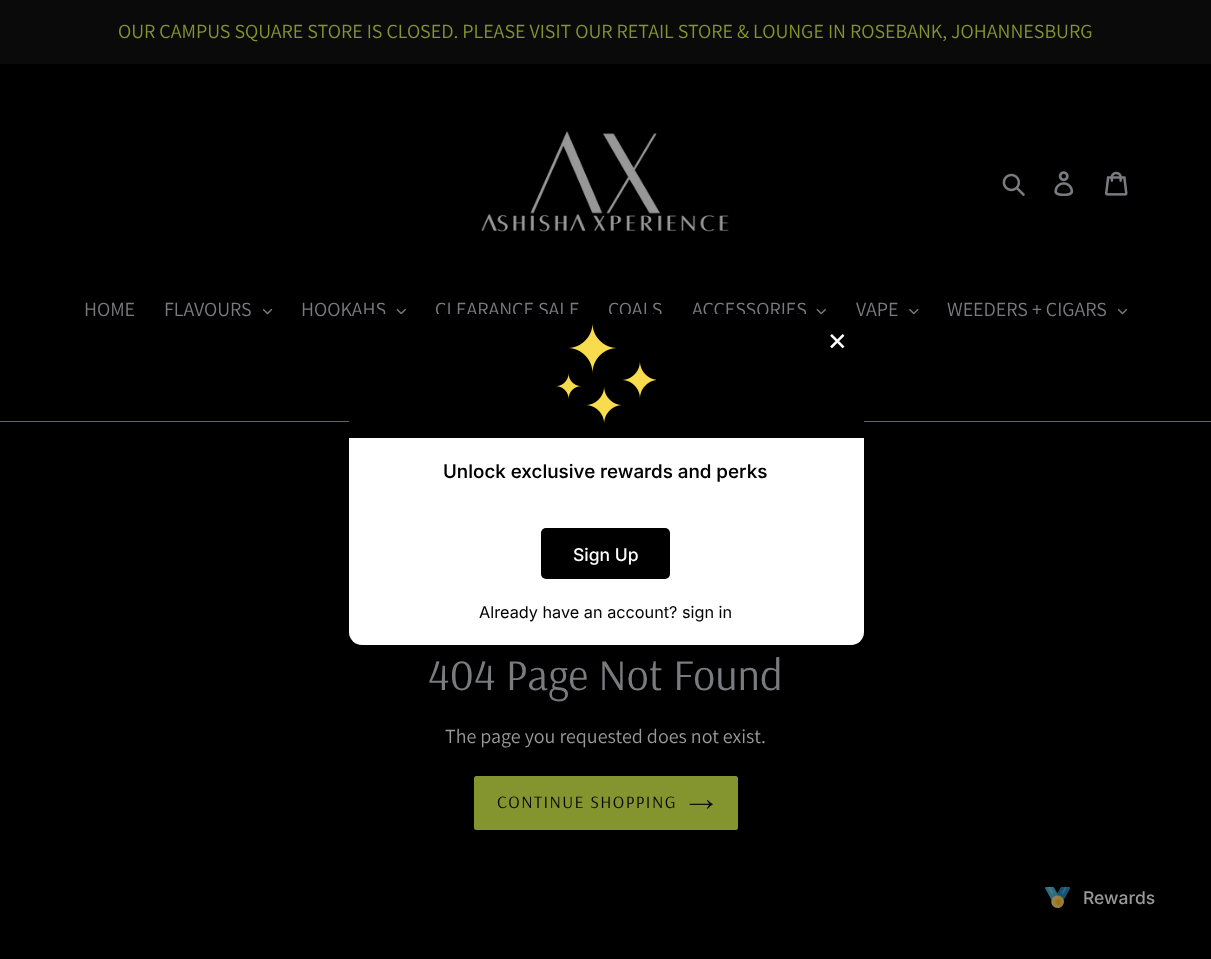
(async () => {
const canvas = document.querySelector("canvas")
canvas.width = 1211
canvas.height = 959
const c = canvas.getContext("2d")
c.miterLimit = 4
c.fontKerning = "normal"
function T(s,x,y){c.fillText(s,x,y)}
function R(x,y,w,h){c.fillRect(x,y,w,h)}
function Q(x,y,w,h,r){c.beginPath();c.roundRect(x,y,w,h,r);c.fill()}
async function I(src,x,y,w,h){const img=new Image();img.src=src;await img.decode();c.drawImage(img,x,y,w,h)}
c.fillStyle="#000"
R(0,0,1211,959)
c.fillStyle="#0b0a0a"
R(0,0,1211,64)
c.font="20px Assistant"
c.fillStyle="#84952f"
T("OUR CAMPUS SQUARE STORE IS CLOSED. PLEASE VISIT OUR RETAIL STORE & LOUNGE IN ROSEBANK, JOHANNESBURG",118,38)
await I("1.png",481,131,248,101)
await I("2.png",1002,173,23,23)
await I("3.png",1054,171,20,25)
await I("4.png",1105,171,23,25)
c.fillStyle="#2f7695"
R(0,421,1211,1)
c.fillStyle="#797b7f"
T("HOME",84,316)
T("FLAVOURS",164,316)
await I("5.png",263,308,10,7)
T("HOOKAHS",301,316)
await I("6.png",396,308,10,6)
T("CLEARANCE SALE",435,316)
T("COALS",608,316)
T("ACCESSORIES",692,316)
await I("6.png",816,308,10,6)
T("VAPE",856,316)
await I("7.png",909,308,10,7)
T("WEEDERS + CIGARS",947,316)
await I("5.png",1118,308,10,7)
c.fillStyle="#000"
c.beginPath()
c.roundRect(349,314,515,124,[13,13,0,0])
c.fill()
await I("8.png",556,323,100,100)
c.fillStyle="#fff"
c.beginPath()
c.roundRect(349,438,515,207,[0,0,13,13])
c.fill()
c.font="31px Inter"
T("×",827,350)
c.font="500 18.75px 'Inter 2'"
c.fillStyle="#000"
T("Unlock exclusive rewards and perks",443,478)
Q(541,528,129,51,5)
c.font="500 17.5px Inter"
c.fillStyle="#fff"
T("Sign Up",573,561)
c.font="16.25px Inter"
c.fillStyle="#000"
T("Already have an account? sign in",479,618)
await I("9.png",1045,887,25,21)
c.font="500 17.5px Inter"
c.fillStyle="#999"
T("Rewards",1083,904)
c.font="43.75px Arsenal"
c.fillStyle="#797b7f"
T("404 Page Not Found",428,690)
c.font="20px Assistant"
c.fillStyle="#999"
T("The page you requested does not exist.",445,743)
c.fillStyle="#84952f"
Q(474,776,264,54,2.5)
c.letterSpacing="1.4px"
c.font="17.5px Arsenal"
c.fillStyle="#0a0707"
T("CONTINUE SHOPPING",497,808)
await I("10.png",689,799,24,10)
})()
